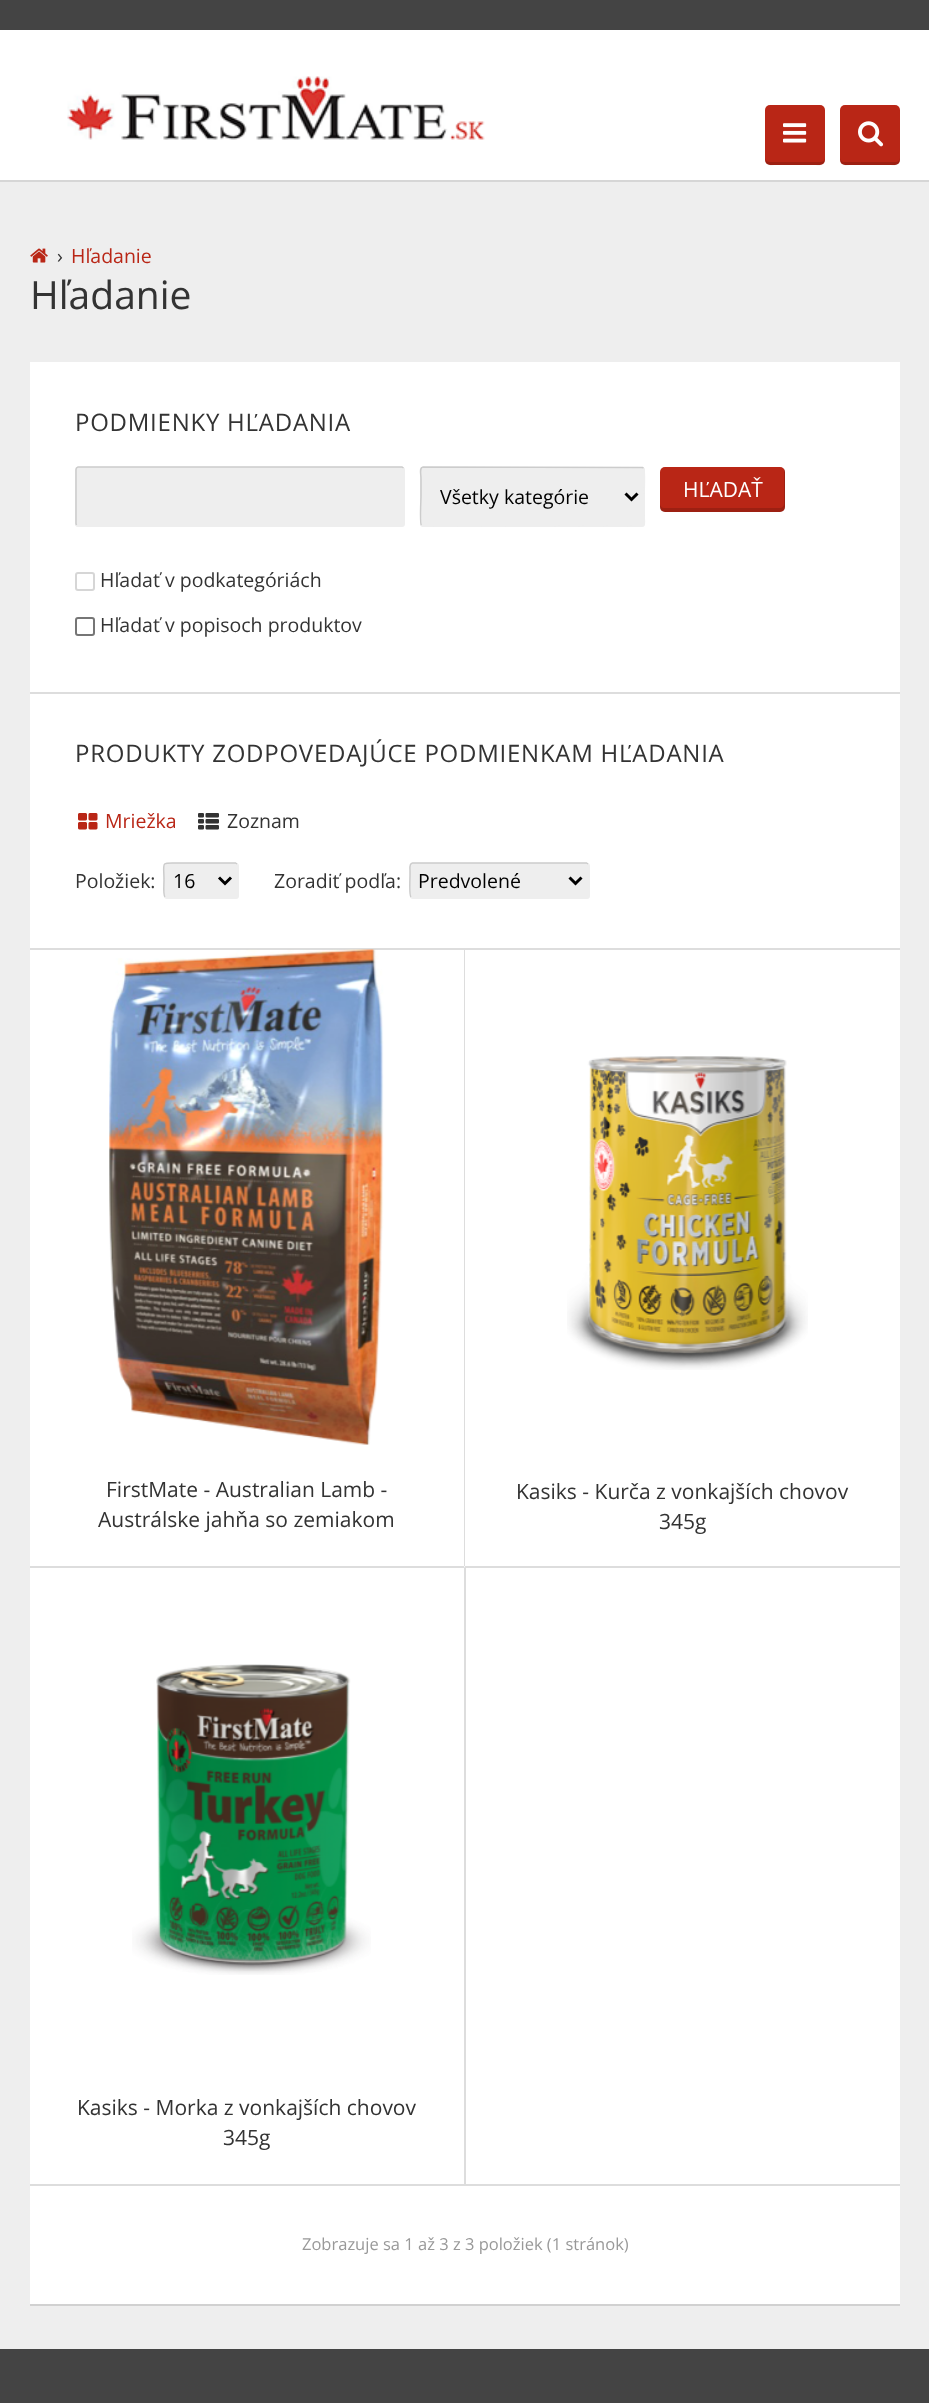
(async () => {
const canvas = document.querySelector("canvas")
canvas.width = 929
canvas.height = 2403
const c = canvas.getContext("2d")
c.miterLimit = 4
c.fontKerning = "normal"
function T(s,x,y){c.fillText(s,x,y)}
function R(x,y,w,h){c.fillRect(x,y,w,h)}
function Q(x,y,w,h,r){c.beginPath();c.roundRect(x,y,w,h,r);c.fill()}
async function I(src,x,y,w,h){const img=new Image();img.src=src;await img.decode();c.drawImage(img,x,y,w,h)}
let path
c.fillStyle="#eee"
R(0,0,929,2403)
c.fillStyle="#d6d6d6"
R(0,180,929,2)
c.fillStyle="#fff"
R(0,30,929,150)
c.fillStyle="#444"
R(0,0,929,30)
await I("1.png",67,76,418,64)
c.fillStyle="#b92616"
Q(765,105,60,60,5)
c.fillStyle="#00000026"
path = new Path2D("M765 158c0 9 6 7 13 7h34c7 0 13 2 13-7c0 2-2 4-5 4h-50c-3 0-5-2-5-4z")
c.fill(path)
await I("2.png",783,123,24,20)
c.fillStyle="#b92616"
Q(840,105,60,60,5)
c.fillStyle="#00000026"
path = new Path2D("M840 158c0 9 6 7 13 7h34c7 0 13 2 13-7c0 2-2 4-4 4h-52c-2 0-4-2-4-4z")
c.fill(path)
await I("3.png",858,121,26,26)
await I("4.png",30,248,18,15)
c.font="19.5px Open Sans"
c.fillStyle="#333"
T("›",57,263)
c.fillStyle="#b92616"
T("Hľadanie",71,263)
c.font="39px Open Sans"
c.fillStyle="#333"
T("Hľadanie",30,309)
c.fillStyle="#d1d1d1"
R(30,2304,870,2)
c.fillStyle="#fff"
R(30,362,870,1942)
c.fillStyle="#ddd"
R(30,692,870,2)
c.letterSpacing="0.75px"
c.font="24px Open Sans"
c.fillStyle="#333"
T("PODMIENKY HĽADANIA",75,431)
c.fillStyle="#eee"
Q(75,467,330,60,3)
path = new Path2D("M403.5 468l.5 1.5v54l-.5 1.5l-1.5 1h-324l-1.5-1")
c.strokeStyle="#eee"
c.lineWidth=1.5
c.stroke(path)
path = new Path2D("M76.5 525l-.5-1.5v-54l.5-1.5l1.5-1h324l1.5 1")
c.strokeStyle="#ccc"
c.stroke(path)
c.fillStyle="#b92616"
Q(660,467,125,45,5)
c.fillStyle="#00000026"
path = new Path2D("M660 504v3c0 3 2 5 5 5h115c3 0 5-2 5-5v-35c0-1 0-2-1-3v35c0 2-2 4-4 4h-116c-2 0-4-2-4-4z")
c.fill(path)
c.letterSpacing="0px"
c.font="21px Open Sans"
c.fillStyle="#fff"
T("HĽADAŤ",683,497)
c.fillStyle="#eee"
Q(420,467,225,60,3)
path = new Path2D("M643.5 468c2 1.5 .5 25 .5 28.5v18c0 4.5 2 11-2 11.5l-219.5-.5l-1-.5")
c.strokeStyle="#eee"
c.stroke(path)
path = new Path2D("M421.5 525c-2-1.5-.5-25-.5-28.5v-18c0-4.5-2-11 2-11.5l219.5 .5l1 .5")
c.strokeStyle="#ccc"
c.stroke(path)
path = new Path2D("M625.5 493.5l6 6l6-6")
c.strokeStyle="#000"
c.lineWidth=3
c.stroke(path)
c.font="19.5px Open Sans"
c.fillStyle="#000"
T("Všetky kategórie",440,504)
c.beginPath()
c.roundRect(76,573,18,17,2)
c.strokeStyle="#d6d6d6"
c.lineWidth=2
c.stroke()
c.fillStyle="#333"
T("Hľadať v podkategóriách",100,587)
c.beginPath()
c.roundRect(76,618,18,17,2)
c.strokeStyle="#767676"
c.stroke()
T("Hľadať v popisoch produktov",100,632)
c.letterSpacing="0.75px"
c.font="24px Open Sans"
T("PRODUKTY ZODPOVEDAJÚCE PODMIENKAM HĽADANIA",75,762)
await I("5.png",78,813,20,17)
c.letterSpacing="0px"
c.font="19.5px Open Sans"
c.fillStyle="#b92616"
T("Mriežka",105,828)
await I("6.png",198,813,21,17)
c.fillStyle="#333"
T("Zoznam",227,828)
T("Položiek:",75,888)
c.fillStyle="#eee"
Q(164,863,75,36,3)
path = new Path2D("M165 897c-2-1.5-1-14-1-16.5c0-19.5-4-17.5 14-17.5h57.5l1.5 1")
c.strokeStyle="#ccc"
c.lineWidth=1.5
c.stroke(path)
path = new Path2D("M219 877.5l6 6l6-6")
c.strokeStyle="#000"
c.lineWidth=3
c.stroke(path)
c.fillStyle="#000"
T("16",173,888)
c.fillStyle="#333"
T("Zoradiť podľa:",274,888)
c.fillStyle="#eee"
Q(410,863,180,36,3)
path = new Path2D("M411 897c-2-1.5-1-18.5-1-21.5v-5c0-1.5-1-7 2.5-7.5h174l1.5 1")
c.strokeStyle="#ccc"
c.lineWidth=1.5
c.stroke(path)
path = new Path2D("M569.5 877.5l6 6l6-6")
c.strokeStyle="#000"
c.lineWidth=3
c.stroke(path)
c.fillStyle="#000"
T("Predvolené",418,888)
c.fillStyle="#ddd"
R(30,948,870,2)
path = new Path2D("M465 1568h-435v-2h434z")
c.fill(path)
await I("7.png",109,949,275,496)
c.font="21px Open Sans"
c.fillStyle="#333"
T("FirstMate - Australian Lamb -",106,1497)
T("Austrálske jahňa so zemiakom",98,1527)
c.fillStyle="#ddd"
R(464,950,1,616)
R(465,1566,435,2)
await I("8.png",567,1056,241,314)
c.fillStyle="#333"
T("Kasiks - Kurča z vonkajších chovov",516,1499)
T("345g",659,1529)
await I("9.png",132,1664,239,311)
T("Kasiks - Morka z vonkajších chovov",77,2115)
T("345g",223,2145)
c.fillStyle="#ddd"
R(464,1568,2,616)
R(30,2184,870,2)
c.font="16.5px Open Sans"
c.fillStyle="#999"
T("Zobrazuje sa 1 až 3 z 3 položiek (1 stránok)",302,2250)
c.fillStyle="#444"
R(0,2349,929,54)
})()
